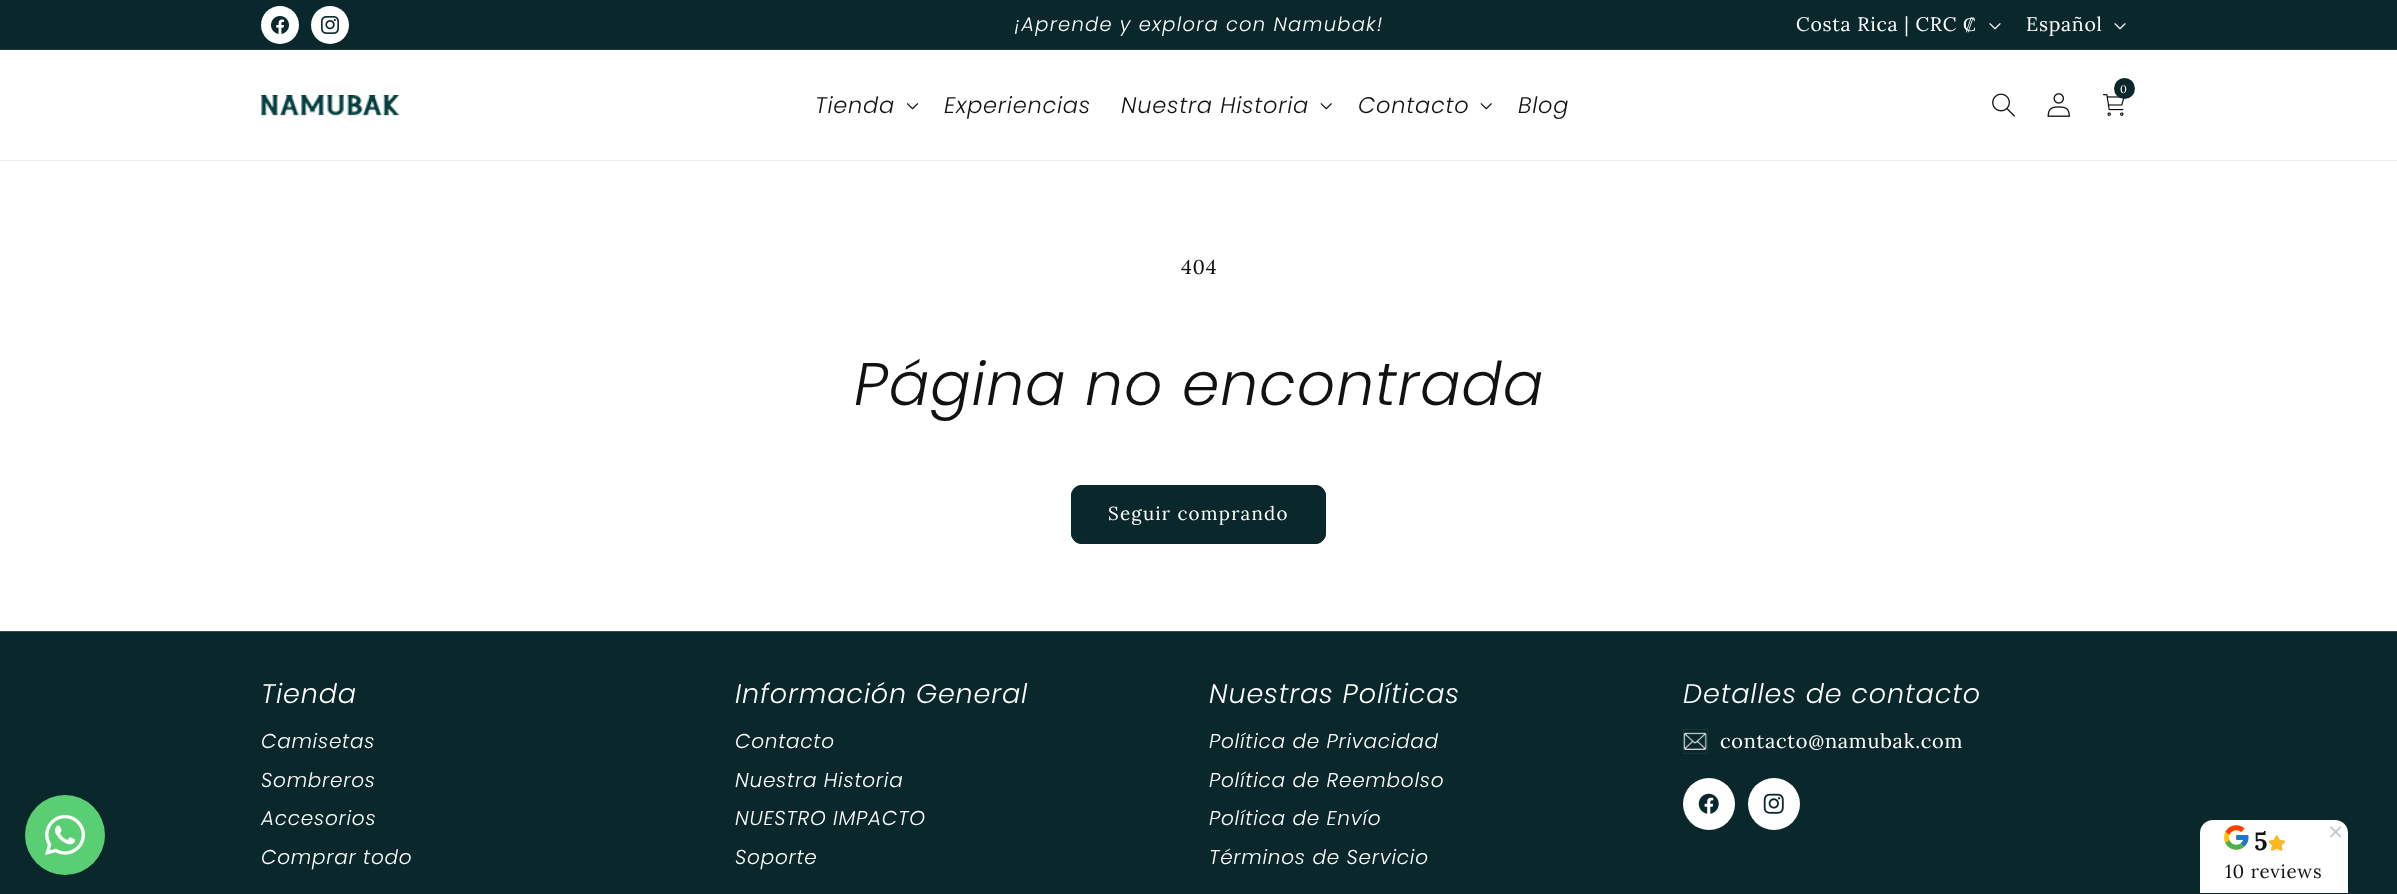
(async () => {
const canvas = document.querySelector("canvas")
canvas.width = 2397
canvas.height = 894
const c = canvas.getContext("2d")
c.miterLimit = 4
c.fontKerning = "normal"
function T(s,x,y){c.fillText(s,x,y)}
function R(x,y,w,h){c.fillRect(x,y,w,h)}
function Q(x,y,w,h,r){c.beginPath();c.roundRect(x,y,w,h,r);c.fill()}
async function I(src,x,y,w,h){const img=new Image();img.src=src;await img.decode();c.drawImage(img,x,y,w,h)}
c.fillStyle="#fff"
R(0,0,2397,894)
c.fillStyle="#0a282b"
R(0,0,2397,49)
c.fillStyle="#1e393c"
R(0,49,2397,1)
c.fillStyle="#fff"
c.beginPath()
c.arc(280,25,19,0,7)
c.fill()
await I("1.png",271,16,18,18)
c.beginPath()
c.arc(330,25,19,0,7)
c.fill()
await I("2.png",321,16,18,18)
c.letterSpacing="1.25px"
c.font="italic 300 19.5px Poppins"
T("¡Aprende y explora con Namubak!",1014,31)
c.letterSpacing="0.75px"
c.font="19.5px Lora"
T("Costa Rica | CRC",1796,31)
c.font="19.5px Liberation Serif"
T("₡",1963,31)
await I("3.png",1989,23,12,7)
c.font="19.5px Lora"
T("Español",2026,31)
await I("3.png",2114,23,12,7)
c.fillStyle="#ececec"
R(0,160,2397,1)
await I("4.png",2102,94,23,22)
c.fillStyle="#0a282b"
c.beginPath()
c.arc(2124.5,88.5,10.5,0,7)
c.fill()
c.font="11px Lora"
c.fillStyle="#fff"
T("0",2120,93)
await I("5.png",1992,93,23,24)
await I("6.png",2047,93,23,24)
await I("7.png",261,95,138,21)
c.font="italic 300 22.5px Poppins"
c.fillStyle="#121212"
T("Tienda",815,113)
await I("8.png",906,103,13,7)
T("Experiencias",944,113)
T("Nuestra Historia",1121,113)
await I("9.png",1320,103,12,7)
T("Contacto",1358,113)
await I("9.png",1480,103,12,7)
T("Blog",1518,113)
c.font="20px Lora"
T("404",1181,274)
c.letterSpacing="0.9px"
c.font="italic 300 60px Poppins"
T("Página no encontrada",854,405)
c.fillStyle="#0a282b"
Q(1071,485,255,59,11)
c.beginPath()
c.roundRect(1071.5,485.5,254,58,10.5)
c.strokeStyle="#0a282b"
c.stroke()
c.letterSpacing="1.25px"
c.font="18.75px Lora"
c.fillStyle="#fff"
T("Seguir comprando",1108,520)
c.fillStyle="#0a282b"
R(0,632,2397,262)
c.fillStyle="#59ce72"
c.beginPath()
c.arc(65,835,40,0,7)
c.fill()
await I("10.png",45,815,40,40)
c.fillStyle="#464646"
R(0,631,2397,1)
c.letterSpacing="0.9px"
c.font="italic 300 27px Poppins"
c.fillStyle="#fff"
T("Tienda",261,703)
c.letterSpacing="0.75px"
c.font="italic 300 20px Poppins"
T("Camisetas",261,748)
T("Sombreros",261,787)
T("Accesorios",261,825)
T("Comprar todo",261,864)
c.letterSpacing="0.9px"
c.font="italic 300 27px Poppins"
T("Información General",735,703)
c.letterSpacing="0.75px"
c.font="italic 300 20px Poppins"
T("Contacto",735,748)
T("Nuestra Historia",735,787)
T("NUESTRO IMPACTO",735,825)
T("Soporte",735,864)
c.letterSpacing="0.9px"
c.font="italic 300 27px Poppins"
T("Nuestras Políticas",1209,703)
c.letterSpacing="0.75px"
c.font="italic 300 20px Poppins"
T("Política de Privacidad",1209,748)
T("Política de Reembolso",1209,787)
T("Política de Envío",1209,825)
T("Términos de Servicio",1209,864)
c.letterSpacing="0.9px"
c.font="italic 300 27px Poppins"
T("Detalles de contacto",1683,703)
c.strokeStyle="#163336"
c.strokeRect(1683.5,729.5,24,24)
await I("11.png",1683,732,24,18)
c.letterSpacing="0.75px"
c.font="20px Lora"
T("contacto@namubak.com",1720,748)
c.beginPath()
c.arc(1709,804,26,0,7)
c.fill()
await I("12.png",1698,793,21,21)
c.beginPath()
c.arc(1774,804,26,0,7)
c.fill()
await I("13.png",1763,793,21,21)
c.beginPath()
c.roundRect(2200,820,148,73,[13,13,0,0])
c.fill()
await I("14.png",2224,825,25,25)
c.font="bold 25px Lora"
c.fillStyle="#121212"
T("5",2254,850)
await I("15.png",2269,835,17,16)
await I("16.png",2330,826,11,12)
c.font="18.75px Lora"
T("10 reviews",2225,878)
})()
